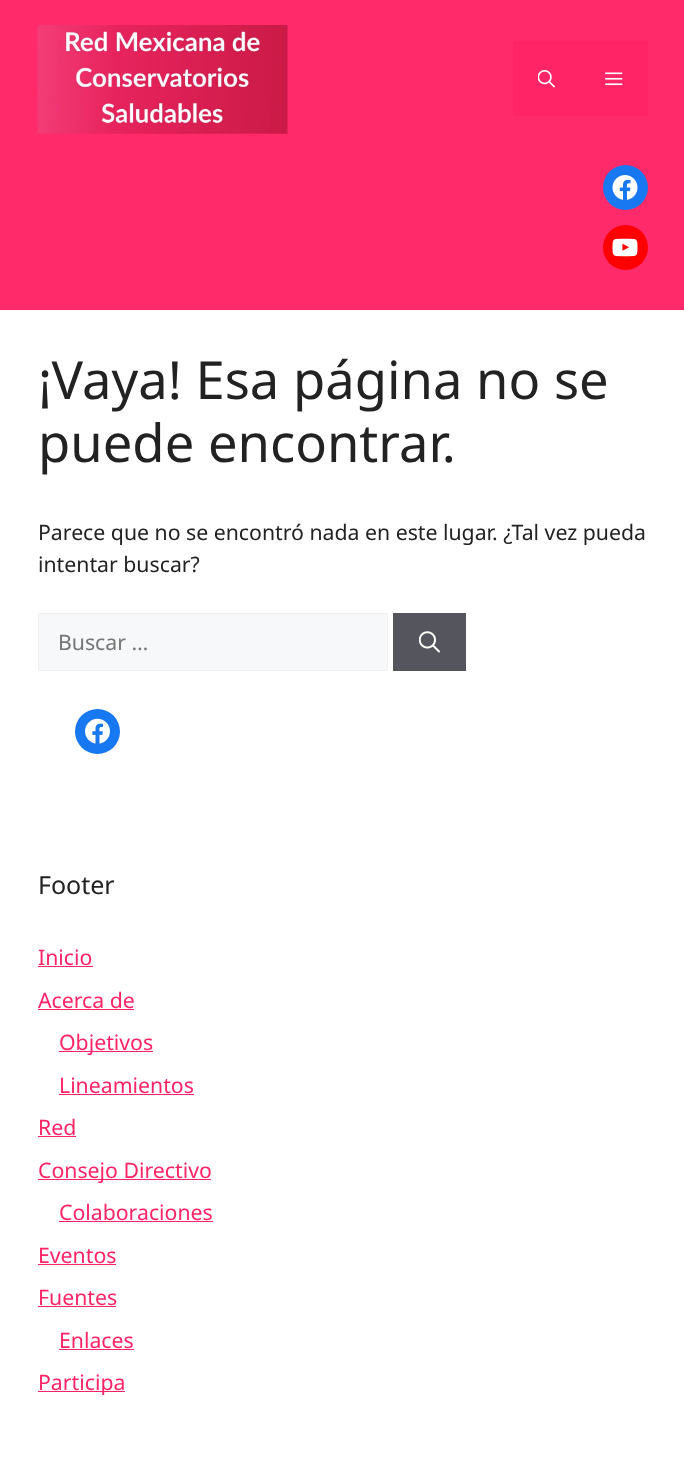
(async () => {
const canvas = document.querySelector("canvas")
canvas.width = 684
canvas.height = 1459
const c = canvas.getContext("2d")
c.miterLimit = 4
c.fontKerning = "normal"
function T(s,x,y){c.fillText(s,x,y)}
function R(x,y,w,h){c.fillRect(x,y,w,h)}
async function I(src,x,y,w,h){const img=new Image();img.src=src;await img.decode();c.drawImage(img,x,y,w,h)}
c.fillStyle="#fff"
R(0,0,684,1459)
c.fillStyle="#ff2a6a"
R(0,0,684,310)
await I("1.png",37,25,251,109)
c.fillStyle="#ff2466"
R(513,41,135,75)
await I("2.png",538,70,17,18)
await I("3.png",605,72,18,14)
c.fillStyle="#1778f2"
c.beginPath()
c.arc(625.5,187.5,22.5,0,7)
c.fill()
await I("4.png",612,175,26,25)
c.fillStyle="#f00"
c.beginPath()
c.arc(625.5,247.5,22.5,0,7)
c.fill()
await I("5.png",612,238,26,19)
c.font="52.5px Noto Sans"
c.fillStyle="#222"
T("¡Vaya! Esa página no se",38,399)
T("puede encontrar.",38,462)
c.font="21.25px Noto Sans"
T("Parece que no se encontró nada en este lugar. ¿Tal vez pueda",38,540)
T("intentar buscar?",38,572)
c.fillStyle="#f7f8f9"
c.beginPath()
c.rect(38.5,613.5,349,57)
c.fill()
c.strokeStyle="#f0f0f0"
c.stroke()
c.fillStyle="#757575"
T("Buscar …",58,650)
c.fillStyle="#55555e"
R(393,613,73,58)
await I("6.png",419,631,21,22)
c.fillStyle="#1778f2"
c.beginPath()
c.arc(97.5,731.5,22.5,0,7)
c.fill()
await I("7.png",85,718,25,26)
c.font="25px Noto Sans"
c.fillStyle="#222"
T("Footer",38,894)
c.font="21.25px Noto Sans"
c.fillStyle="#ff2466"
T("Inicio",38,965)
R(38,966,55,1)
T("Acerca de",38,1008)
R(38,1009,96,1)
R(59,1051,94,1)
T("Objetivos",59,1050)
T("Lineamientos",59,1093)
R(59,1094,135,1)
T("Red",38,1135)
R(38,1136,38,1)
R(38,1179,173,1)
T("Consejo Directivo",38,1178)
T("Colaboraciones",59,1220)
R(59,1221,154,1)
T("Eventos",38,1263)
R(38,1264,78,1)
T("Fuentes",38,1305)
R(38,1306,78,1)
T("Enlaces",59,1348)
R(59,1349,75,1)
R(38,1391,87,1)
T("Participa",38,1390)
})()
